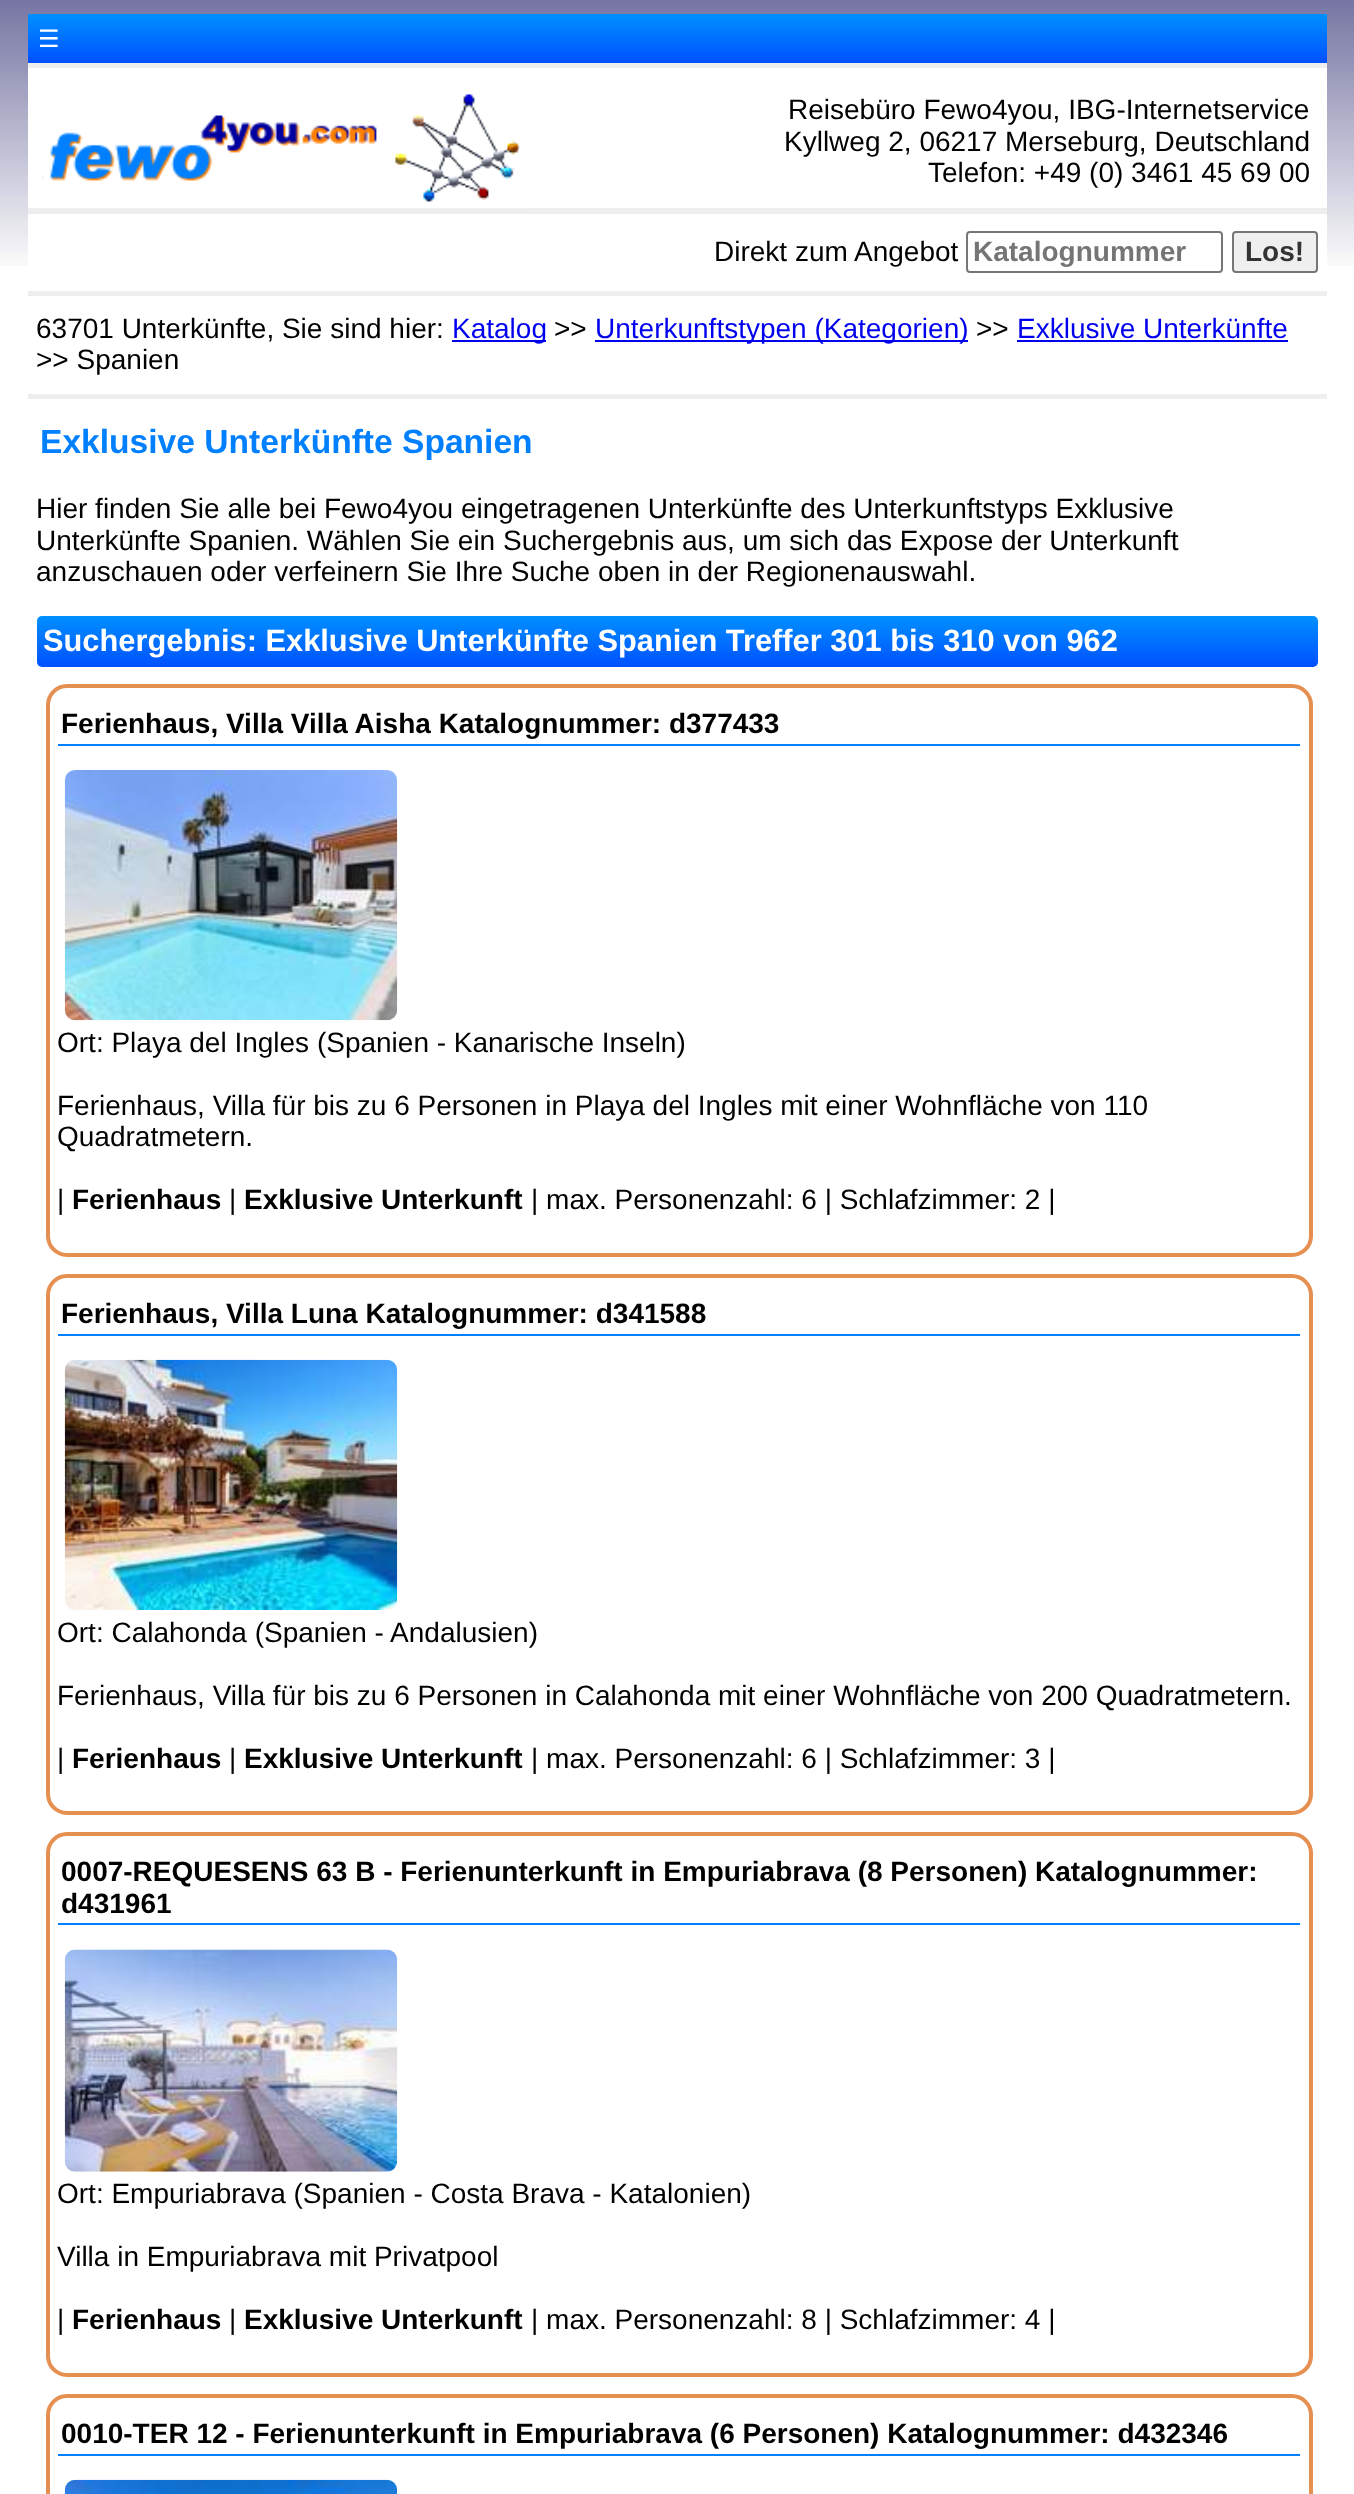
(async () => {
const canvas = document.querySelector("canvas")
canvas.width = 1354
canvas.height = 2494
const c = canvas.getContext("2d")
c.miterLimit = 4
c.fontKerning = "normal"
function T(s,x,y){c.fillText(s,x,y)}
function R(x,y,w,h){c.fillRect(x,y,w,h)}
function Q(x,y,w,h,r){c.beginPath();c.roundRect(x,y,w,h,r);c.fill()}
async function I(src,x,y,w,h){const img=new Image();img.src=src;await img.decode();c.drawImage(img,x,y,w,h)}
let gradient
c.fillStyle="#fff"
R(0,0,1354,2494)
await I("1.png",0,0,1354,266)
c.fillStyle="#eee"
R(28,63,1299,336)
gradient = c.createLinearGradient(677,14,677,63)
gradient.addColorStop(0,"#0090ff")
gradient.addColorStop(1,"#0050ff")
c.fillStyle = gradient
R(28,14,1299,49)
c.font="24px DejaVu Sans"
c.fillStyle="#fff"
T("☰",38,47)
R(28,68,1299,140)
await I("2.png",37,94,489,115)
c.font="28px Liberation Sans"
c.fillStyle="#000"
T("Reisebüro Fewo4you, IBG-Internetservice",788,119)
T("Kyllweg 2, 06217 Merseburg, Deutschland",784,151)
T("Telefon: +49 (0) 3461 45 69 00",928,182)
c.fillStyle="#fff"
R(28,214,1299,77)
c.fillStyle="#000"
T("Direkt zum Angebot",714,261)
c.beginPath()
c.roundRect(967,232,255,40,3)
c.strokeStyle="#767676"
c.lineWidth=2
c.stroke()
c.font="bold 28px Liberation Sans"
c.fillStyle="#757575"
T("Katalognummer",973,261)
c.fillStyle="#efefef"
c.beginPath()
c.roundRect(1233,232,84,40,3)
c.fill()
c.stroke()
c.fillStyle="#333"
T("Los!",1245,261)
c.fillStyle="#fff"
R(28,296,1299,98)
c.font="28px Liberation Sans"
c.fillStyle="#000"
T("63701 Unterkünfte, Sie sind hier:",36,338)
c.fillStyle="#00e"
R(452,340,94,2)
T("Katalog",452,338)
c.fillStyle="#000"
T(">>",554,338)
c.fillStyle="#00e"
R(595,340,373,2)
T("Unterkunftstypen (Kategorien)",595,338)
c.fillStyle="#000"
T(">>",976,338)
c.fillStyle="#00e"
T("Exklusive Unterkünfte",1017,338)
R(1017,340,271,2)
c.fillStyle="#000"
T(">> Spanien",36,369)
c.font="bold 33.6px Liberation Sans"
c.fillStyle="#0080ff"
T("Exklusive Unterkünfte Spanien",40,453)
c.font="28px Liberation Sans"
c.fillStyle="#000"
T("Hier finden Sie alle bei Fewo4you eingetragenen Unterkünfte des Unterkunftstyps Exklusive",36,518)
T("Unterkünfte Spanien. Wählen Sie ein Suchergebnis aus, um sich das Expose der Unterkunft",36,550)
T("anzuschauen oder verfeinern Sie Ihre Suche oben in der Regionenauswahl.",36,581)
gradient = c.createLinearGradient(677,616,677,667)
gradient.addColorStop(0,"#0090ff")
gradient.addColorStop(1,"#0050ff")
c.fillStyle = gradient
Q(37,616,1281,51,5)
c.font="bold 30.8px Liberation Sans"
c.fillStyle="#fff"
T("Suchergebnis: Exklusive Unterkünfte Spanien Treffer 301 bis 310 von 962",43,651)
c.beginPath()
c.roundRect(48,686,1263,569,19)
c.strokeStyle="#e59050"
c.lineWidth=4
c.stroke()
c.fillStyle="#0080ff"
R(58,744,1242,2)
c.font="bold 28px Liberation Sans"
c.fillStyle="#000"
T("Ferienhaus, Villa Villa Aisha Katalognummer: d377433",61,733)
await I("3.png",64,770,334,251)
c.font="28px Liberation Sans"
T("Ort: Playa del Ingles (Spanien - Kanarische Inseln)",57,1052)
T("Ferienhaus, Villa für bis zu 6 Personen in Playa del Ingles mit einer Wohnfläche von 110",57,1115)
T("Quadratmetern.",57,1146)
T("|",57,1209)
c.font="bold 28px Liberation Sans"
T("Ferienhaus",72,1209)
c.font="28px Liberation Sans"
T("|",229,1209)
c.font="bold 28px Liberation Sans"
T("Exklusive Unterkunft",244,1209)
c.font="28px Liberation Sans"
T("| max. Personenzahl: 6 | Schlafzimmer: 2 |",531,1209)
c.beginPath()
c.roundRect(48,1276,1263,537,19)
c.stroke()
c.fillStyle="#0080ff"
R(58,1334,1242,2)
c.font="bold 28px Liberation Sans"
c.fillStyle="#000"
T("Ferienhaus, Villa Luna Katalognummer: d341588",61,1323)
await I("4.png",64,1359,334,251)
c.font="28px Liberation Sans"
T("Ort: Calahonda (Spanien - Andalusien)",57,1642)
T("Ferienhaus, Villa für bis zu 6 Personen in Calahonda mit einer Wohnfläche von 200 Quadratmetern.",57,1705)
T("|",57,1768)
c.font="bold 28px Liberation Sans"
T("Ferienhaus",72,1768)
c.font="28px Liberation Sans"
T("|",229,1768)
c.font="bold 28px Liberation Sans"
T("Exklusive Unterkunft",244,1768)
c.font="28px Liberation Sans"
T("| max. Personenzahl: 6 | Schlafzimmer: 3 |",531,1768)
c.beginPath()
c.roundRect(48,1834,1263,541,19)
c.stroke()
c.fillStyle="#0080ff"
R(58,1923,1242,2)
c.font="bold 28px Liberation Sans"
c.fillStyle="#000"
T("0007-REQUESENS 63 B - Ferienunterkunft in Empuriabrava (8 Personen) Katalognummer:",61,1881)
T("d431961",61,1913)
await I("5.png",64,1949,334,223)
c.font="28px Liberation Sans"
T("Ort: Empuriabrava (Spanien - Costa Brava - Katalonien)",57,2203)
T("Villa in Empuriabrava mit Privatpool",57,2266)
T("|",57,2329)
c.font="bold 28px Liberation Sans"
T("Ferienhaus",72,2329)
c.font="28px Liberation Sans"
T("|",229,2329)
c.font="bold 28px Liberation Sans"
T("Exklusive Unterkunft",244,2329)
c.font="28px Liberation Sans"
T("| max. Personenzahl: 8 | Schlafzimmer: 4 |",531,2329)
c.beginPath()
c.roundRect(48,2396,1263,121,19)
c.stroke()
c.fillStyle="#0080ff"
R(58,2454,1242,2)
c.font="bold 28px Liberation Sans"
c.fillStyle="#000"
T("0010-TER 12 - Ferienunterkunft in Empuriabrava (6 Personen) Katalognummer: d432346",61,2443)
await I("6.png",64,2479,334,15)
})()
